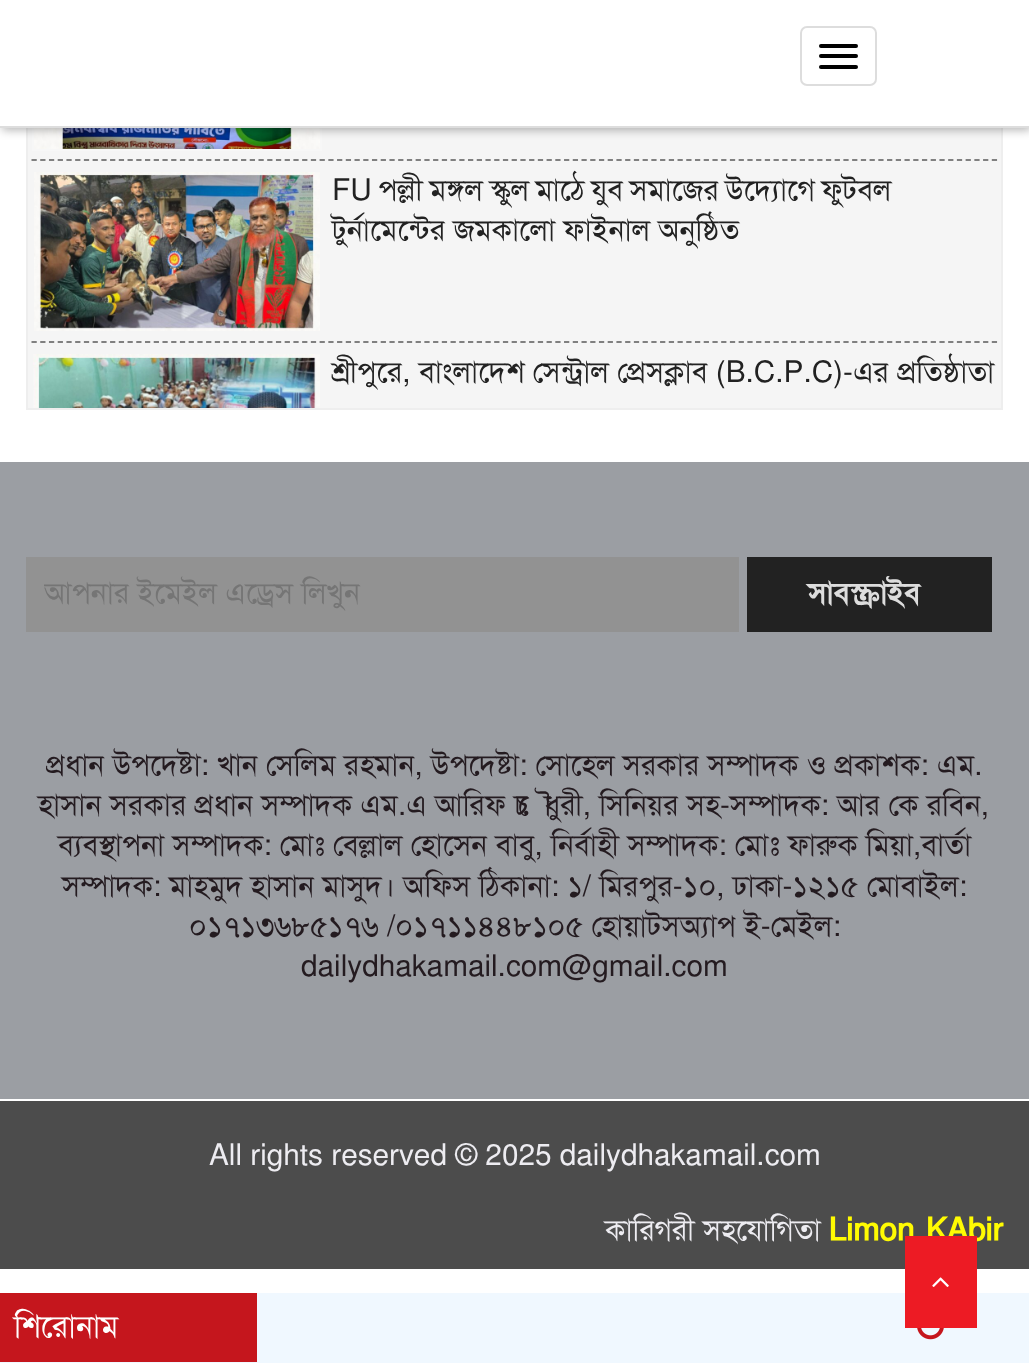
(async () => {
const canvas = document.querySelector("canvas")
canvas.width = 1029
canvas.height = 1363
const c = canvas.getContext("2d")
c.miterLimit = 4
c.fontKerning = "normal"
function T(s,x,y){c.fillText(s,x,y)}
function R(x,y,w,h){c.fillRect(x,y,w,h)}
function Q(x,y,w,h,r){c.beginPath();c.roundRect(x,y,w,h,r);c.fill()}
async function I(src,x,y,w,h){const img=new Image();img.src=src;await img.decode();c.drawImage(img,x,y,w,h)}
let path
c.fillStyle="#fff"
R(0,0,1029,1363)
c.fillStyle="#f5f5f5"
R(28,128,973,280)
c.strokeStyle="#eee"
c.lineWidth=2
c.strokeRect(27,-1,975,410)
c.strokeStyle="#f7f7f7"
c.strokeRect(33,-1,288,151)
await I("1.png",34,128,286,21)
c.fillStyle="#0000004d"
c.filter="blur(5px)"
c.beginPath()
c.rect(2,2,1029,128)
c.fill()
c.filter="none"
c.fillStyle="#fff"
R(0,0,1029,126)
c.fillStyle="#ddd"
R(0,126,1029,2)
c.beginPath()
c.roundRect(801,27,75,58,6)
c.strokeStyle="#ddd"
c.stroke()
c.fillStyle="#000"
Q(819,44,39,4,2)
Q(819,54,39,4,2)
Q(819,65,39,4,2)
path = new Path2D("M31.5 160h966")
c.strokeStyle="#808080"
c.lineWidth=1.8
c.setLineDash([5.25,3.48])
c.stroke(path)
path = new Path2D("M31.5 342h966")
c.stroke(path)
await I("2.png",34,172,286,159)
c.wordSpacing="-1.75px"
c.font="29.75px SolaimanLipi"
c.fillStyle="#222"
T("FU পল্লী মঙ্গল স্কুল মাঠে যুব সমাজের উদ্যোগে ফুটবল",332,200)
c.wordSpacing="0px"
T("টুর্নামেন্টের জমকালো ফাইনাল অনুষ্ঠিত",332,240)
await I("3.png",33,354,287,54)
T("শ্রীপুরে, বাংলাদেশ সেন্ট্রাল প্রেসক্লাব (B.C.P.C)-এর প্রতিষ্ঠাতা",332,382)
c.fillStyle="#9b9ea3"
R(0,462,1029,637)
c.fillStyle="#929292"
R(26,557,713,75)
c.save()
c.beginPath()
c.rect(44,574,677,40)
c.clip()
c.fillStyle="#757575"
T("আপনার ইমেইল এড্রেস লিখুন",44,603)
c.restore()
c.fillStyle="#222"
R(747,557,245,75)
c.font="bold 29.75px SolaimanLipi"
c.fillStyle="#ddd"
T("সাবস্ক্রাইব",808,603)
c.font="29.75px SolaimanLipi"
c.fillStyle="#241b20"
T("প্রধান উপদেষ্টা: খান সেলিম রহমান, উপদেষ্টা: সোহেল সরকার সম্পাদক ও প্রকাশক: এম.",46,775)
T("হাসান সরকার প্রধান সম্পাদক এম.এ আরিফ চৌধুরী, সিনিয়র সহ-সম্পাদক: আর কে রবিন,",38,815)
T("ব্যবস্থাপনা সম্পাদক: মোঃ বেল্লাল হোসেন বাবু, নির্বাহী সম্পাদক: মোঃ ফারুক মিয়া,বার্তা",58,855)
T("সম্পাদক: মাহমুদ হাসান মাসুদ। অফিস ঠিকানা: ১/ মিরপুর-১০, ঢাকা-১২১৫ মোবাইল:",62,896)
T("০১৭১৩৬৮৫১৭৬ /০১৭১১৪৪৮১০৫ হোয়াটসঅ্যাপ ই-মেইল:",189,936)
T("dailydhakamail.com@gmail.com",301,976)
c.fillStyle="#4c4c4c"
R(0,1101,1029,168)
c.fillStyle="#edecf1"
T("All rights reserved © 2025 dailydhakamail.com",209,1165)
T("কারিগরী সহযোগিতা",605,1240)
c.font="bold 31.5px SolaimanLipi"
c.fillStyle="#fffb02"
T("Limon KAbir",829,1240)
c.fillStyle="#f0f8ff"
R(0,1293,1029,70)
c.fillStyle="#c5161d"
R(0,1293,257,69)
c.font="31.5px SolaimanLipi"
c.fillStyle="#fff"
T("শিরোনাম",14,1337)
await I("4.png",917,1328,27,12)
c.fillStyle="#ed1b24"
R(905,1236,72,92)
await I("5.png",932,1277,17,10)
})()
